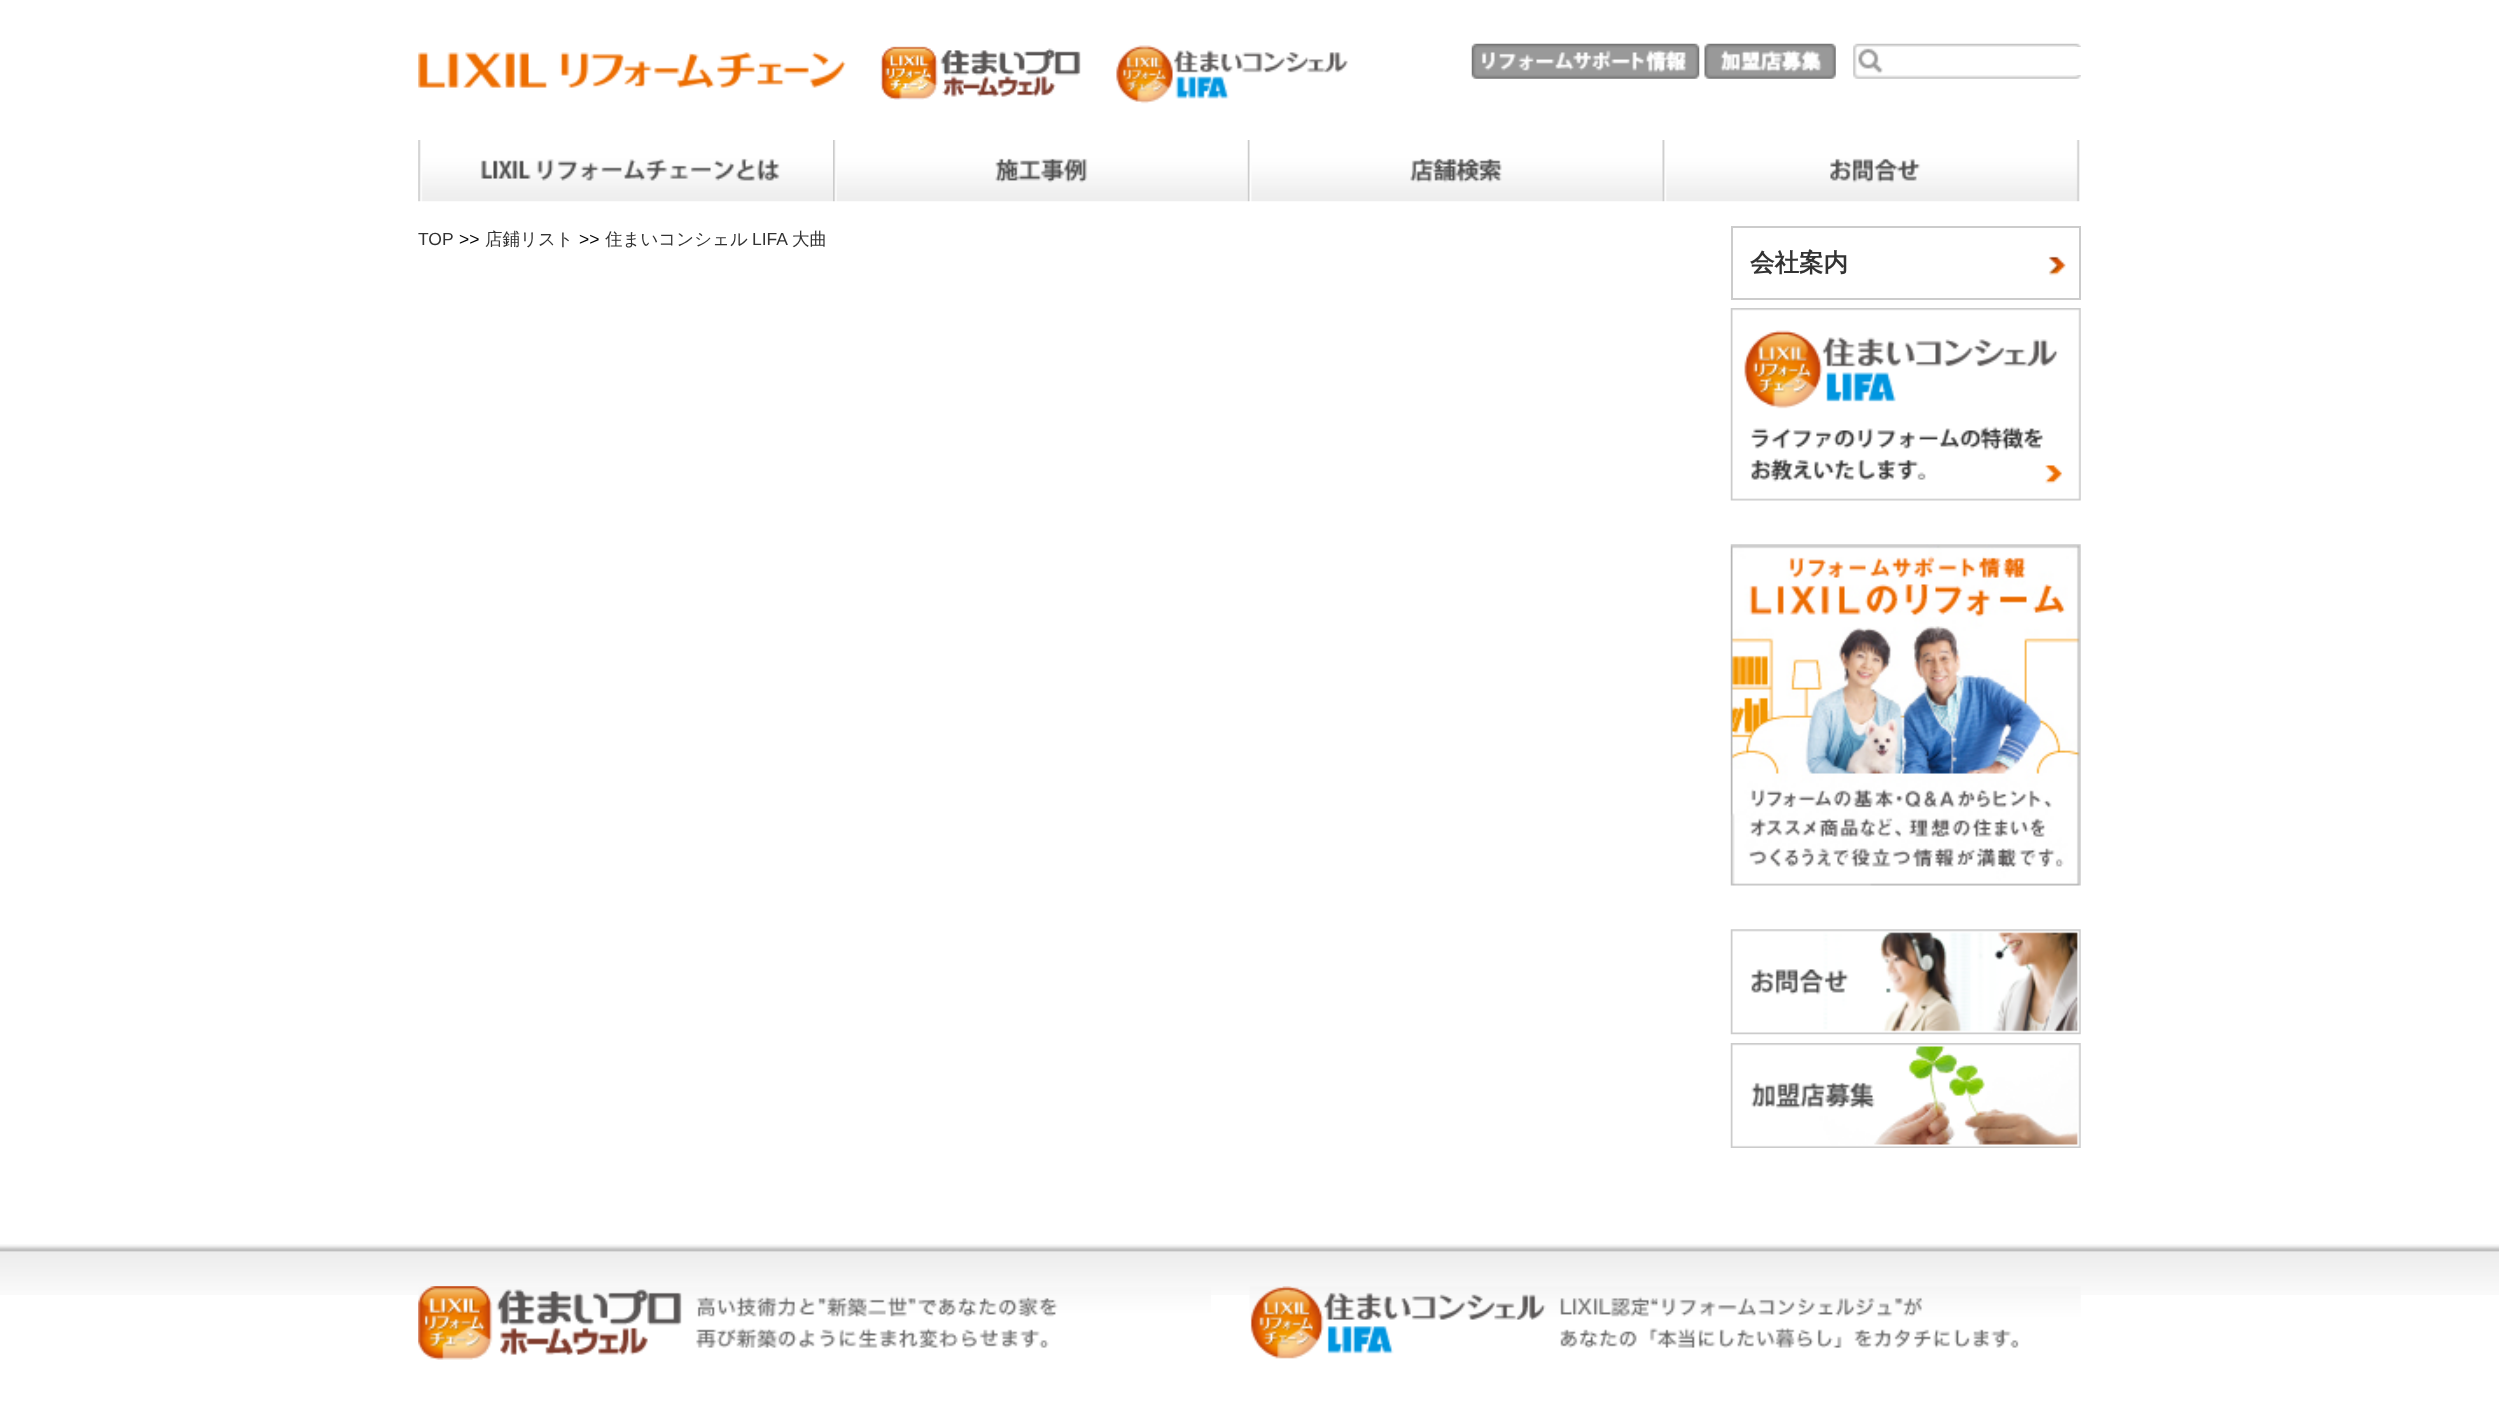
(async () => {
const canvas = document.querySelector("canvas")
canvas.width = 2499
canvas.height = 1406
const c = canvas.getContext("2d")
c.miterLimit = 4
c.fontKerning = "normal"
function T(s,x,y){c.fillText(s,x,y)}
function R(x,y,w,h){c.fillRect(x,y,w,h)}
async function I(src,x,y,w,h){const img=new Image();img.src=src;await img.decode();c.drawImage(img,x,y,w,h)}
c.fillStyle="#fff"
R(0,0,2499,1406)
await I("1.png",418,52,428,36)
await I("2.png",880,46,201,54)
await I("3.png",1116,45,232,59)
await I("4.png",1471,43,229,36)
await I("5.png",1704,43,132,36)
await I("6.png",1853,43,228,36)
R(1878,47,203,28)
await I("7.png",1856,47,27,27)
await I("8.png",418,140,415,62)
await I("9.png",833,140,415,62)
await I("10.png",1247,140,416,62)
await I("11.png",1662,140,418,62)
c.font="17.5px Liberation Sans"
c.fillStyle="#333"
T("TOP",418,245)
c.fillStyle="#000"
T(">>",459,245)
c.font="500 17.5px WenQuanYi Zen Hei"
c.fillStyle="#333"
T("店鋪リスト",485,245)
c.font="17.5px Liberation Sans"
c.fillStyle="#000"
T(">>",579,245)
c.font="500 17.5px WenQuanYi Zen Hei"
c.fillStyle="#333"
T("住まいコンシェル",605,245)
c.font="17.5px Liberation Sans"
T("LIFA",752,245)
c.font="500 17.5px WenQuanYi Zen Hei"
T("大曲",792,245)
c.fillStyle="#ccc"
R(1731,226,350,2)
R(2079,228,2,71)
R(1731,298,350,2)
R(1731,228,2,71)
await I("12.png",2048,256,18,20)
c.font="bold 24.5px WenQuanYi Zen Hei"
c.fillStyle="#333"
T("会社案内",1750,271)
await I("13.png",1730,308,351,193)
await I("14.png",1730,544,351,342)
await I("15.png",1730,929,351,106)
await I("16.png",1730,1043,351,105)
await I("17.png",0,1244,2499,51)
await I("18.png",418,1286,793,74)
await I("19.png",1249,1286,832,73)
})()
